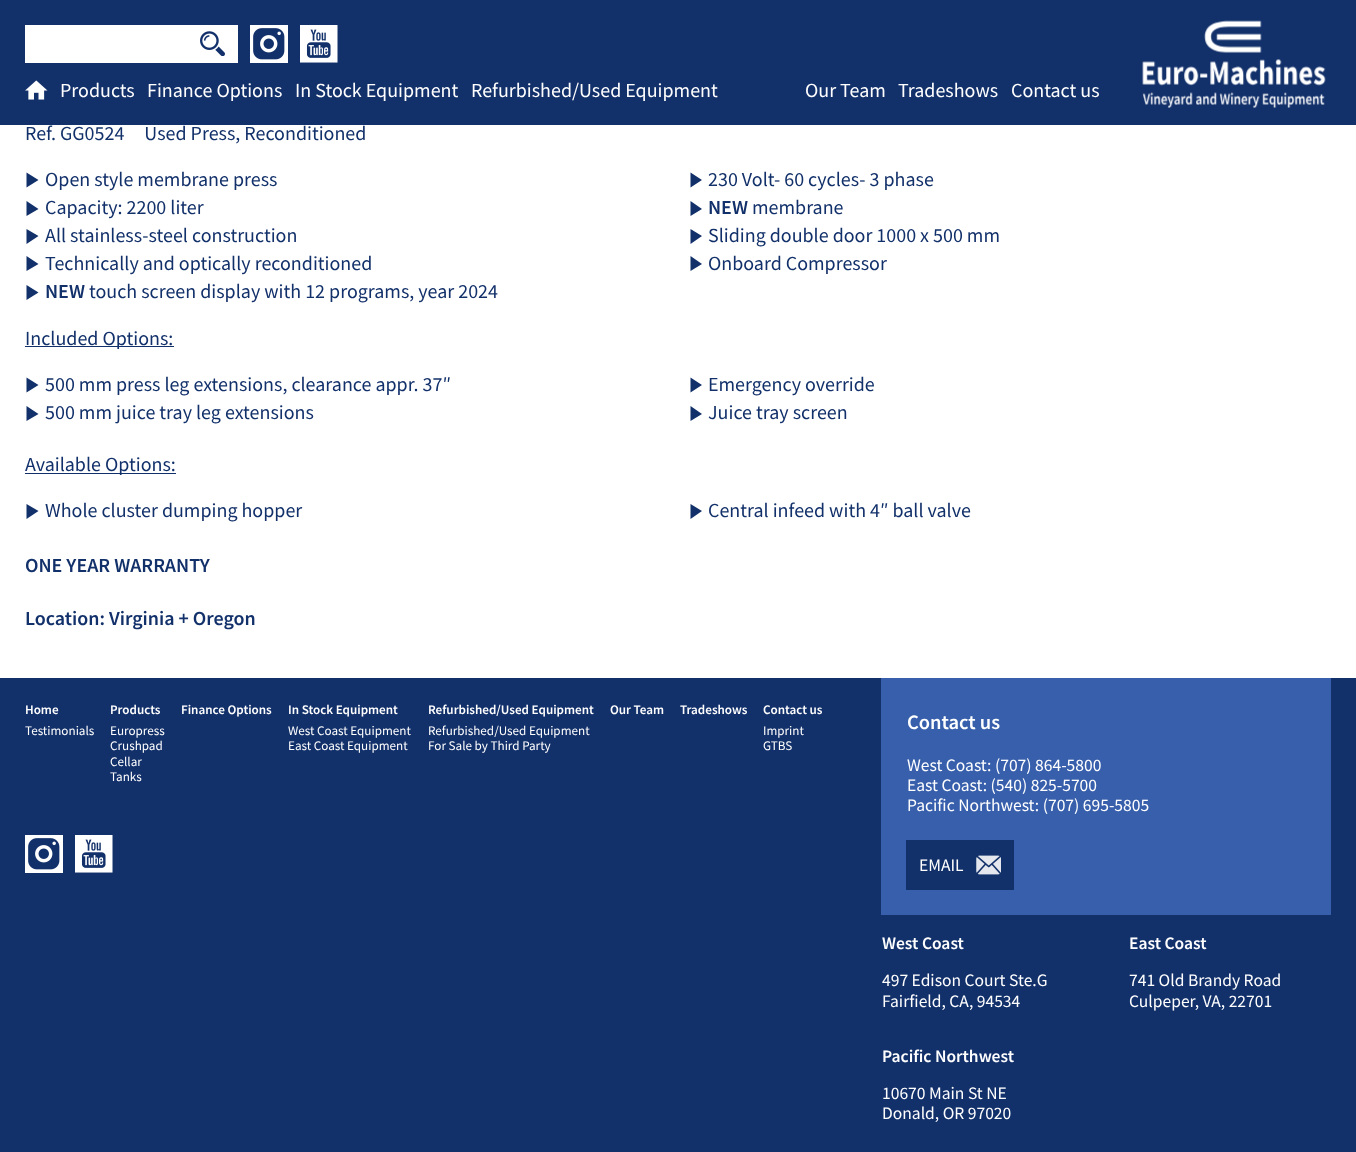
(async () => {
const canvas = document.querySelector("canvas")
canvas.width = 1356
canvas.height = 1152
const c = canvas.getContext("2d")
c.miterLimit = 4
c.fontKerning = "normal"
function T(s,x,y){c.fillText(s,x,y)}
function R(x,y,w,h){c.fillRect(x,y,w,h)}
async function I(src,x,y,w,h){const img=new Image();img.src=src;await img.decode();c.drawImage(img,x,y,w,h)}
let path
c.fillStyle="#fff"
R(0,0,1356,1152)
c.fillStyle="#12306a"
R(0,0,1356,125)
c.fillStyle="#fff"
R(25,25,213,38)
await I("1.png",200,31,25,25)
await I("2.png",250,25,38,38)
await I("3.png",300,25,38,38)
await I("4.png",1142,20,184,88)
await I("5.png",25,80,23,20)
c.font="20px Source Sans Pro"
T("Products",60,97)
T("Finance Options",147,97)
T("In Stock Equipment",295,97)
T("Refurbished/Used Equipment",471,97)
T("Our Team",805,97)
T("Tradeshows",898,97)
T("Contact us",1011,97)
c.fillStyle="#12306a"
T("Ref. GG0524     Used Press, Reconditioned",25,140)
path = new Path2D("M26.5 172.5v15l12-7.5zm0 28.5v15l12-7z")
c.fill(path)
T("Open style membrane press",45,186)
path = new Path2D("M690.5 172.5v15l11.5-7.5zm0 28.5v15l11.5-7z")
c.fill(path)
T("230 Volt- 60 cycles- 3 phase",708,186)
T("Capacity: 2200 liter",45,214)
c.font="600 20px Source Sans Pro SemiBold"
T("NEW",708,214)
c.font="20px Source Sans Pro"
T("membrane",752,214)
path = new Path2D("M26.5 229v15l12-8zm0 27v15l12-7z")
c.fill(path)
T("All stainless-steel construction",45,242)
path = new Path2D("M690.5 229v15l11.5-8zm0 27v15l11.5-7z")
c.fill(path)
T("Sliding double door 1000 x 500 mm",708,242)
T("Technically and optically reconditioned",45,270)
T("Onboard Compressor",708,270)
path = new Path2D("M26.5 285v15l12-7.5z")
c.fill(path)
c.font="600 20px Source Sans Pro SemiBold"
T("NEW",45,298)
c.font="20px Source Sans Pro"
T("touch screen display with 12 programs, year 2024",89,298)
R(25,346,149,1)
T("Included Options:",25,345)
path = new Path2D("M26.5 377.5v15l12-7.5zm0 28.5v15l12-7z")
c.fill(path)
T("500 mm press leg extensions, clearance appr. 37″",45,391)
path = new Path2D("M690.5 377.5v15l11.5-7.5zm0 28.5v15l11.5-7z")
c.fill(path)
T("Emergency override",708,391)
T("500 mm juice tray leg extensions",45,419)
T("Juice tray screen",708,419)
R(25,473,151,1)
T("Available Options:",25,471)
path = new Path2D("M26.5 504v15l12-8z")
c.fill(path)
T("Whole cluster dumping hopper",45,517)
path = new Path2D("M690.5 504v15l11.5-8z")
c.fill(path)
T("Central infeed with 4″ ball valve",708,517)
c.font="600 20px Source Sans Pro SemiBold"
T("ONE YEAR WARRANTY",25,572)
T("Location: Virginia + Oregon",25,625)
R(0,678,1356,474)
c.font="600 13.1px Source Sans Pro SemiBold"
c.fillStyle="#fff"
T("Home",25,714)
c.font="13.1px Source Sans Pro"
T("Testimonials",25,735)
c.font="600 13.1px Source Sans Pro SemiBold"
T("Products",110,714)
c.font="13.1px Source Sans Pro"
T("Europress",110,735)
T("Crushpad",110,750)
T("Cellar",110,766)
T("Tanks",110,781)
c.font="600 13.1px Source Sans Pro SemiBold"
T("Finance Options",181,714)
T("In Stock Equipment",288,714)
c.font="13.1px Source Sans Pro"
T("West Coast Equipment",288,735)
T("East Coast Equipment",288,750)
c.font="600 13.1px Source Sans Pro SemiBold"
T("Refurbished/Used Equipment",428,714)
c.font="13.1px Source Sans Pro"
T("Refurbished/Used Equipment",428,735)
T("For Sale by Third Party",428,750)
c.font="600 13.1px Source Sans Pro SemiBold"
T("Our Team",610,714)
T("Tradeshows",680,714)
T("Contact us",763,714)
c.font="13.1px Source Sans Pro"
T("Imprint",763,735)
T("GTBS",763,750)
c.fillStyle="#375fab"
R(881,678,450,237)
c.font="600 20.5px Source Sans Pro SemiBold"
c.fillStyle="#fff"
T("Contact us",907,729)
c.font="17.5px Source Sans Pro"
T("West Coast: (707) 864-5800",907,771)
T("East Coast: (540) 825-5700",907,791)
T("Pacific Northwest: (707) 695-5805",907,811)
c.fillStyle="#12306a"
R(906,840,108,50)
c.fillStyle="#fff"
T("EMAIL",919,871)
await I("6.png",976,855,25,20)
c.font="600 17.5px Source Sans Pro SemiBold"
T("West Coast",882,949)
c.font="17.5px Source Sans Pro"
T("497 Edison Court Ste.G",882,986)
T("Fairfield, CA, 94534",882,1007)
c.font="600 17.5px Source Sans Pro SemiBold"
T("East Coast",1129,949)
c.font="17.5px Source Sans Pro"
T("741 Old Brandy Road",1129,986)
T("Culpeper, VA, 22701",1129,1007)
c.font="600 17.5px Source Sans Pro SemiBold"
T("Pacific Northwest",882,1062)
c.font="17.5px Source Sans Pro"
T("10670 Main St NE",882,1099)
T("Donald, OR 97020",882,1119)
await I("2.png",25,835,38,38)
await I("3.png",75,835,38,38)
})()
